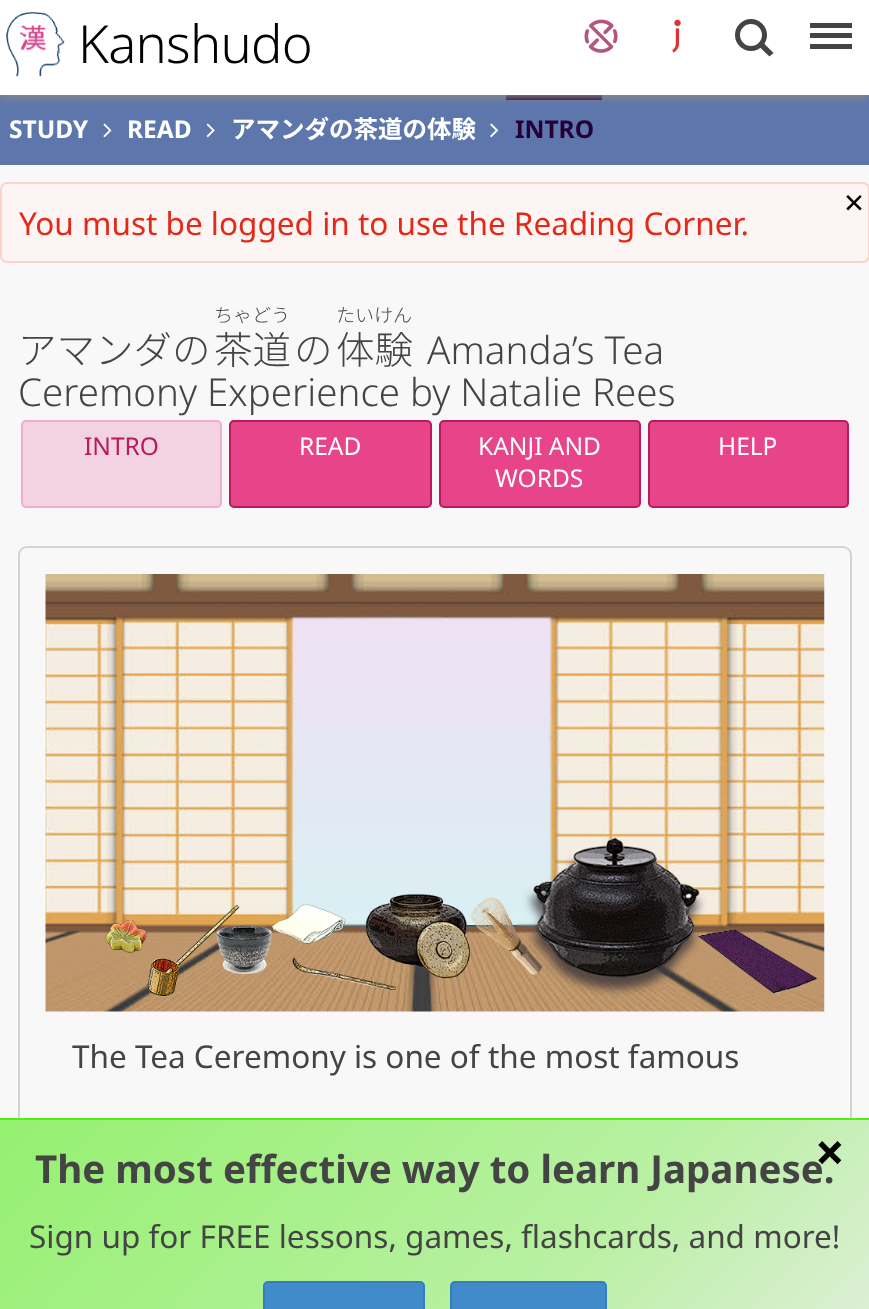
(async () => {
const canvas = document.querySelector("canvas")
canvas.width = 869
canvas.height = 1309
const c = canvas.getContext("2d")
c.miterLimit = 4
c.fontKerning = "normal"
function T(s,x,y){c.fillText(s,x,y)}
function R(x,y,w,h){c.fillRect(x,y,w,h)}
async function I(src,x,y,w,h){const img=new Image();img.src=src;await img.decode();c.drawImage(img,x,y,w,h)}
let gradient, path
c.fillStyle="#f8f8f8"
R(0,0,869,1309)
c.fillStyle="#5d76ac"
R(0,95,869,70)
c.fillStyle="#250035"
R(506,95,96,5)
c.fillStyle="#888"
c.filter="blur(4.5px)"
c.beginPath()
c.rect(0,4,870,94)
c.fill()
c.filter="none"
c.fillStyle="#fff"
R(0,0,869,95)
await I("1.png",6,11,59,66)
c.letterSpacing="-0.75px"
c.font="300 52.5px Noto Sans"
c.fillStyle="#000"
T("Kanshudo",78,63)
await I("2.png",584,19,34,34)
await I("3.png",672,19,9,34)
c.beginPath()
c.arc(751,35,13.5,0,7)
c.strokeStyle="#444"
c.lineWidth=5
c.stroke()
c.fillStyle="#444"
path = new Path2D("M763.5 43l10 10l-4 3.5l-10-9.5z")
c.fill(path)
R(810,33,42,5)
R(810,23,42,5)
R(810,44,42,5)
c.letterSpacing="0px"
c.font="bold 24.5px Noto Sans"
c.fillStyle="#fff"
T("STUDY",9,138)
await I("4.png",103,123,9,15)
T("READ",127,138)
await I("5.png",206,123,9,15)
c.font="bold 24.5px Noto Sans CJK JP"
T("アマンダの茶道の体験",231,138)
await I("6.png",490,123,9,15)
c.font="bold 24.5px Noto Sans"
c.fillStyle="#250035"
T("INTRO",515,138)
c.fillStyle="#fcf5f3"
c.beginPath()
c.roundRect(1,183,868,79,6)
c.fill()
c.strokeStyle="#fad4cc"
c.lineWidth=2
c.stroke()
c.font="35px Noto Sans"
c.fillStyle="#000"
T("×",844,215)
c.font="31.5px Noto Sans"
c.fillStyle="#e52919"
T("You must be logged in to use the Reading Corner.",19,235)
c.font="300 38.5px Noto Sans CJK JP"
c.fillStyle="#444"
T("アマンダの",18,364)
c.font="300 19px Noto Sans CJK JP"
T("ちゃどう",214,322)
c.font="300 38.5px Noto Sans CJK JP"
T("茶道",214,364)
T("の",294,364)
c.font="300 19px Noto Sans CJK JP"
T("たいけん",336,322)
c.font="300 38.5px Noto Sans CJK JP"
T("体験",336,364)
c.font="300 38.5px Noto Sans"
T("Amanda’s Tea",427,364)
T("Ceremony Experience by Natalie Rees",18,406)
c.fillStyle="#f3d3e1"
c.beginPath()
c.roundRect(22,421,199,86,4)
c.fill()
c.strokeStyle="#f3acca"
c.stroke()
c.font="24.5px Noto Sans"
c.fillStyle="#b71a5d"
T("INTRO",84,455)
c.fillStyle="#e7448a"
c.beginPath()
c.roundRect(230,421,201,86,4)
c.fill()
c.strokeStyle="#b71a5d"
c.stroke()
c.fillStyle="#fff"
T("READ",299,455)
c.fillStyle="#e7448a"
c.beginPath()
c.roundRect(440,421,200,86,4)
c.fill()
c.stroke()
c.fillStyle="#fff"
T("KANJI AND",478,455)
T("WORDS",495,487)
c.fillStyle="#e7448a"
c.beginPath()
c.roundRect(649,421,199,86,4)
c.fill()
c.stroke()
c.fillStyle="#fff"
T("HELP",718,455)
c.beginPath()
c.roundRect(19,547,832,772,8)
c.strokeStyle="#d3d3d3"
c.stroke()
await I("7.png",45,574,780,438)
c.font="31.5px Noto Sans"
c.fillStyle="#444"
T("The Tea Ceremony is one of the most famous",72,1068)
gradient = c.createLinearGradient(157,963,713,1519)
gradient.addColorStop(0,"#95f070")
gradient.addColorStop(.65,"#baf0a4")
gradient.addColorStop(1,"#e1efdc")
c.fillStyle = gradient
R(0,1120,869,189)
c.fillStyle="#51f010"
R(0,1118,869,2)
c.font="bold 38.5px Noto Sans"
c.fillStyle="#444"
T("The most effective way to learn Japanese.",35,1183)
c.font="bold 52px Noto Sans"
c.fillStyle="#000"
T("×",815,1171)
c.font="31.5px Noto Sans"
c.fillStyle="#444"
T("Sign up for FREE lessons, games, flashcards, and more!",29,1248)
c.fillStyle="#428bca"
c.beginPath()
c.roundRect(264,1282,160,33,4)
c.fill()
c.strokeStyle="#357ebd"
c.stroke()
c.beginPath()
c.roundRect(451,1282,155,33,4)
c.fill()
c.stroke()
})()
